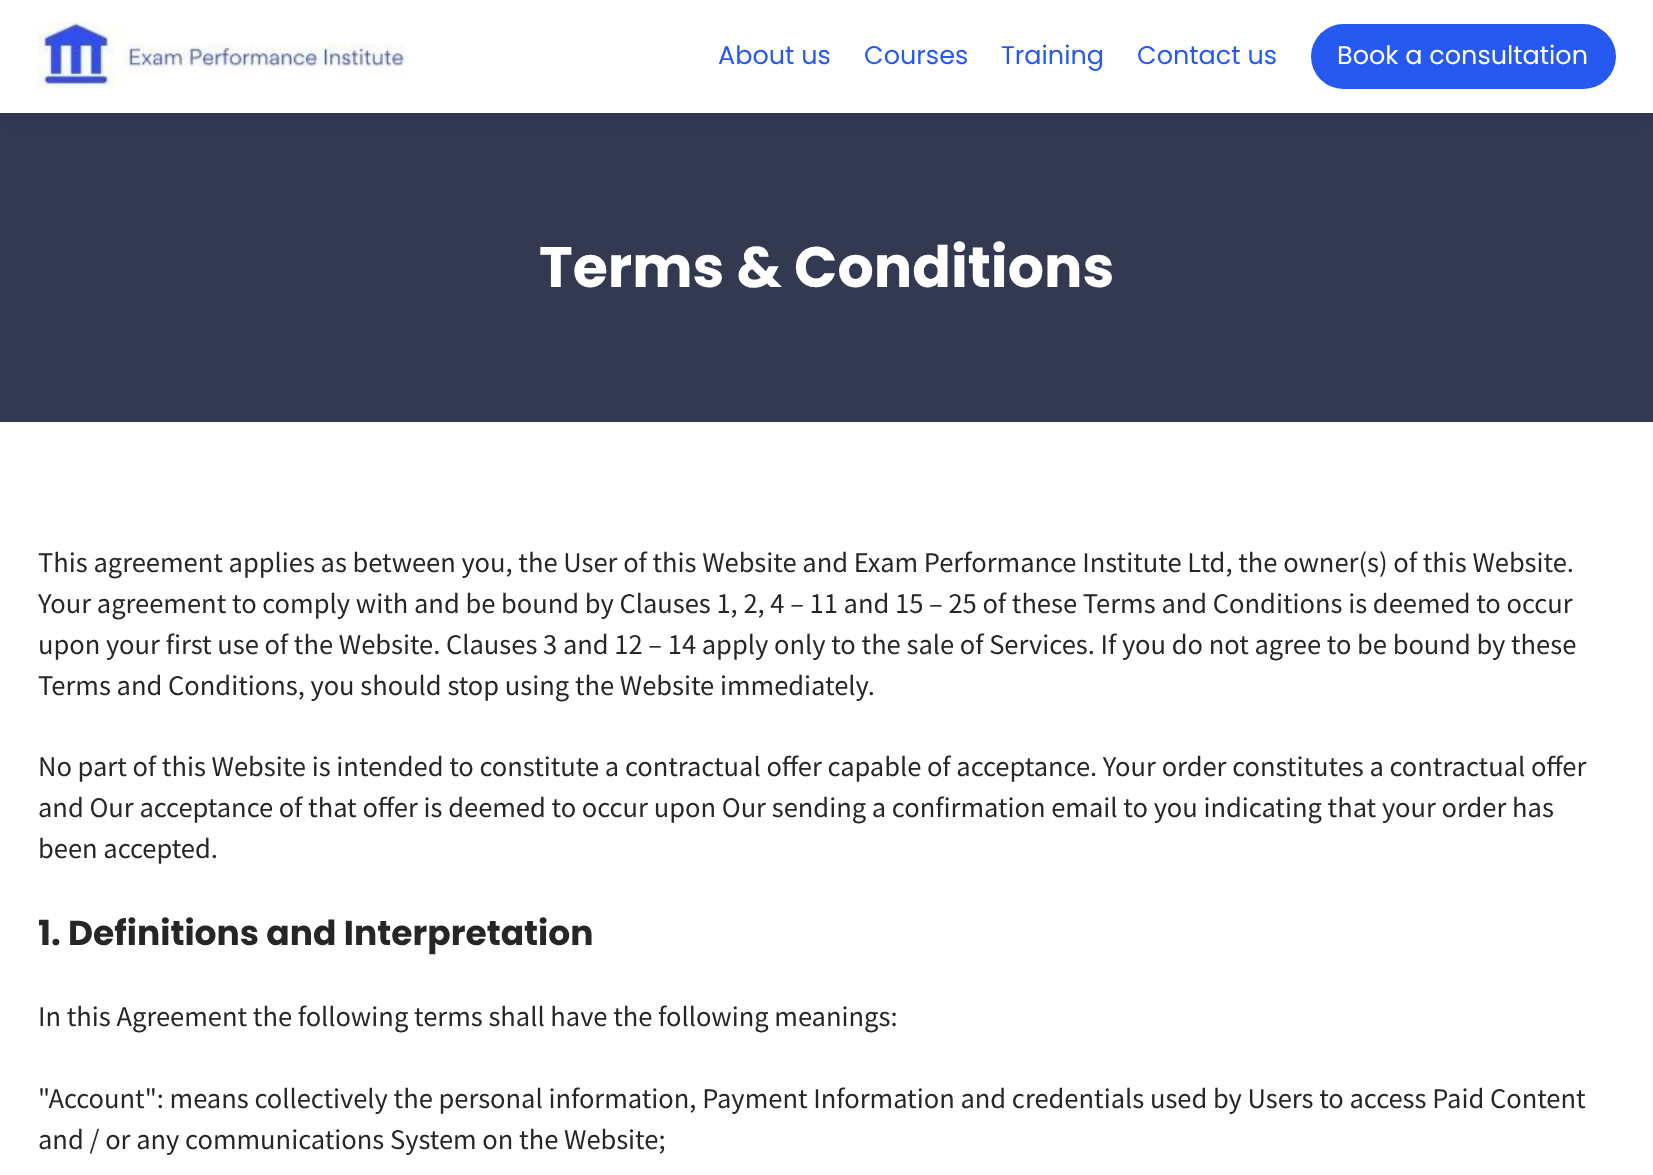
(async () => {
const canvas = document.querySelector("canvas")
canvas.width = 1653
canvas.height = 1175
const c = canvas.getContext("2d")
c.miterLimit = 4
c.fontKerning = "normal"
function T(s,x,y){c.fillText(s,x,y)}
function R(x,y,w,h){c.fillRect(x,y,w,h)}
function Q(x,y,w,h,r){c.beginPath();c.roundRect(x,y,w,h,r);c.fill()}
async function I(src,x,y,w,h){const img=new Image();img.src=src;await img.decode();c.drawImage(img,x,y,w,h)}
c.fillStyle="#fff"
R(0,0,1653,1175)
c.fillStyle="#323951"
R(0,113,1653,309)
c.fillStyle="#0000000d"
c.filter="blur(11px)"
c.beginPath()
c.rect(0,0,1653,113)
c.fill()
c.filter="none"
c.fillStyle="#fff"
R(0,0,1653,113)
await I("1.png",37,22,368,67)
c.font="25.5px Poppins"
c.fillStyle="#2659f0"
T("About us",718,64)
T("Courses",864,64)
T("Training",1001,64)
T("Contact us",1137,64)
Q(1311,24,305,65,32.5)
c.fillStyle="#fff"
T("Book a consultation",1337,64)
c.font="bold 57px Poppins"
T("Terms & Conditions",539,287)
c.font="25.5px Noto Sans JP"
c.fillStyle="#262626"
T("This agreement applies as between you, the User of this Website and Exam Performance Institute Ltd, the owner(s) of this Website.",38,572)
T("Your agreement to comply with and be bound by Clauses 1, 2, 4 – 11 and 15 – 25 of these Terms and Conditions is deemed to occur",38,613)
T("upon your first use of the Website. Clauses 3 and 12 – 14 apply only to the sale of Services. If you do not agree to be bound by these",38,654)
T("Terms and Conditions, you should stop using the Website immediately.",38,695)
T("No part of this Website is intended to constitute a contractual offer capable of acceptance. Your order constitutes a contractual offer",38,776)
T("and Our acceptance of that offer is deemed to occur upon Our sending a confirmation email to you indicating that your order has",38,817)
T("been accepted.",38,858)
c.font="bold 34.5px Poppins"
T("1. Definitions and Interpretation",38,945)
c.font="25.5px Noto Sans JP"
T("In this Agreement the following terms shall have the following meanings:",38,1026)
T("\"Account\": means collectively the personal information, Payment Information and credentials used by Users to access Paid Content",38,1108)
T("and / or any communications System on the Website;",38,1149)
})()
